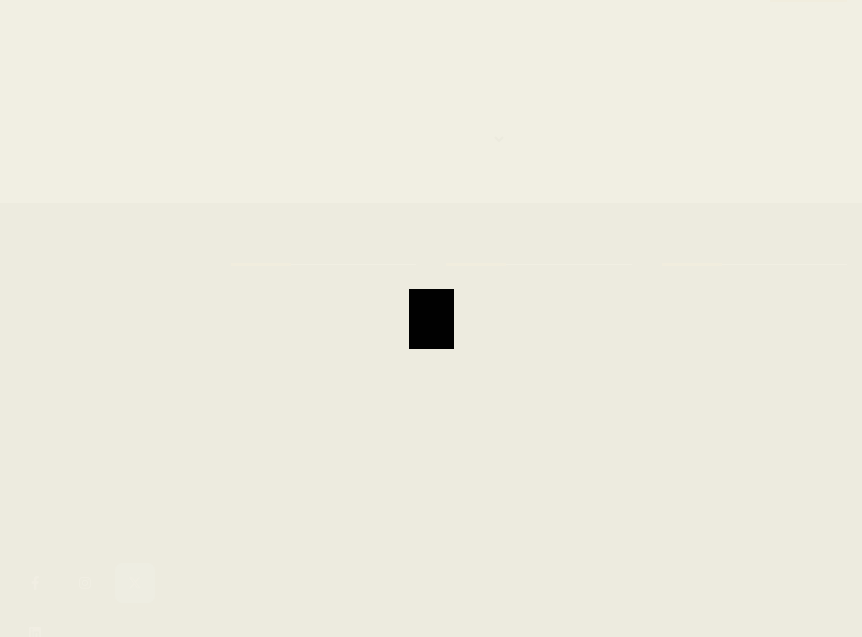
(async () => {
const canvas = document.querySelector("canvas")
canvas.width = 862
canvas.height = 637
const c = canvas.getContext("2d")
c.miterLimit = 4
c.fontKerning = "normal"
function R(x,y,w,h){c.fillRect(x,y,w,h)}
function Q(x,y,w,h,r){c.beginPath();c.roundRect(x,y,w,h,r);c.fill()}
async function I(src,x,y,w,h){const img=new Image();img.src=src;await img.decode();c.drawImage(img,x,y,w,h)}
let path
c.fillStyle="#f1efe3"
R(0,0,862,637)
c.fillStyle="#f1edde"
R(770,0,77,2)
path = new Path2D("M495 137l4 4l4-4")
c.strokeStyle="#eceade"
c.lineWidth=2
c.stroke(path)
c.fillStyle="#edebdf"
R(0,203,862,434)
c.fillStyle="#f1efe3"
R(291,264,125,1)
c.fillStyle="#f1edde"
R(231,263,60,3)
c.fillStyle="#f1efe3"
R(506,264,126,1)
c.fillStyle="#f1edde"
R(446,263,60,3)
c.fillStyle="#f1efe3"
R(722,264,125,1)
c.fillStyle="#f1edde"
R(662,263,60,3)
await I("1.png",31,576,8,14)
await I("2.png",79,576,12,13)
c.fillStyle="#eeede2"
Q(115,563,40,40,7)
await I("3.png",128,577,13,12)
await I("4.png",29,626,12,11)
c.fillStyle="#010101"
R(409,289,45,60)
})()
